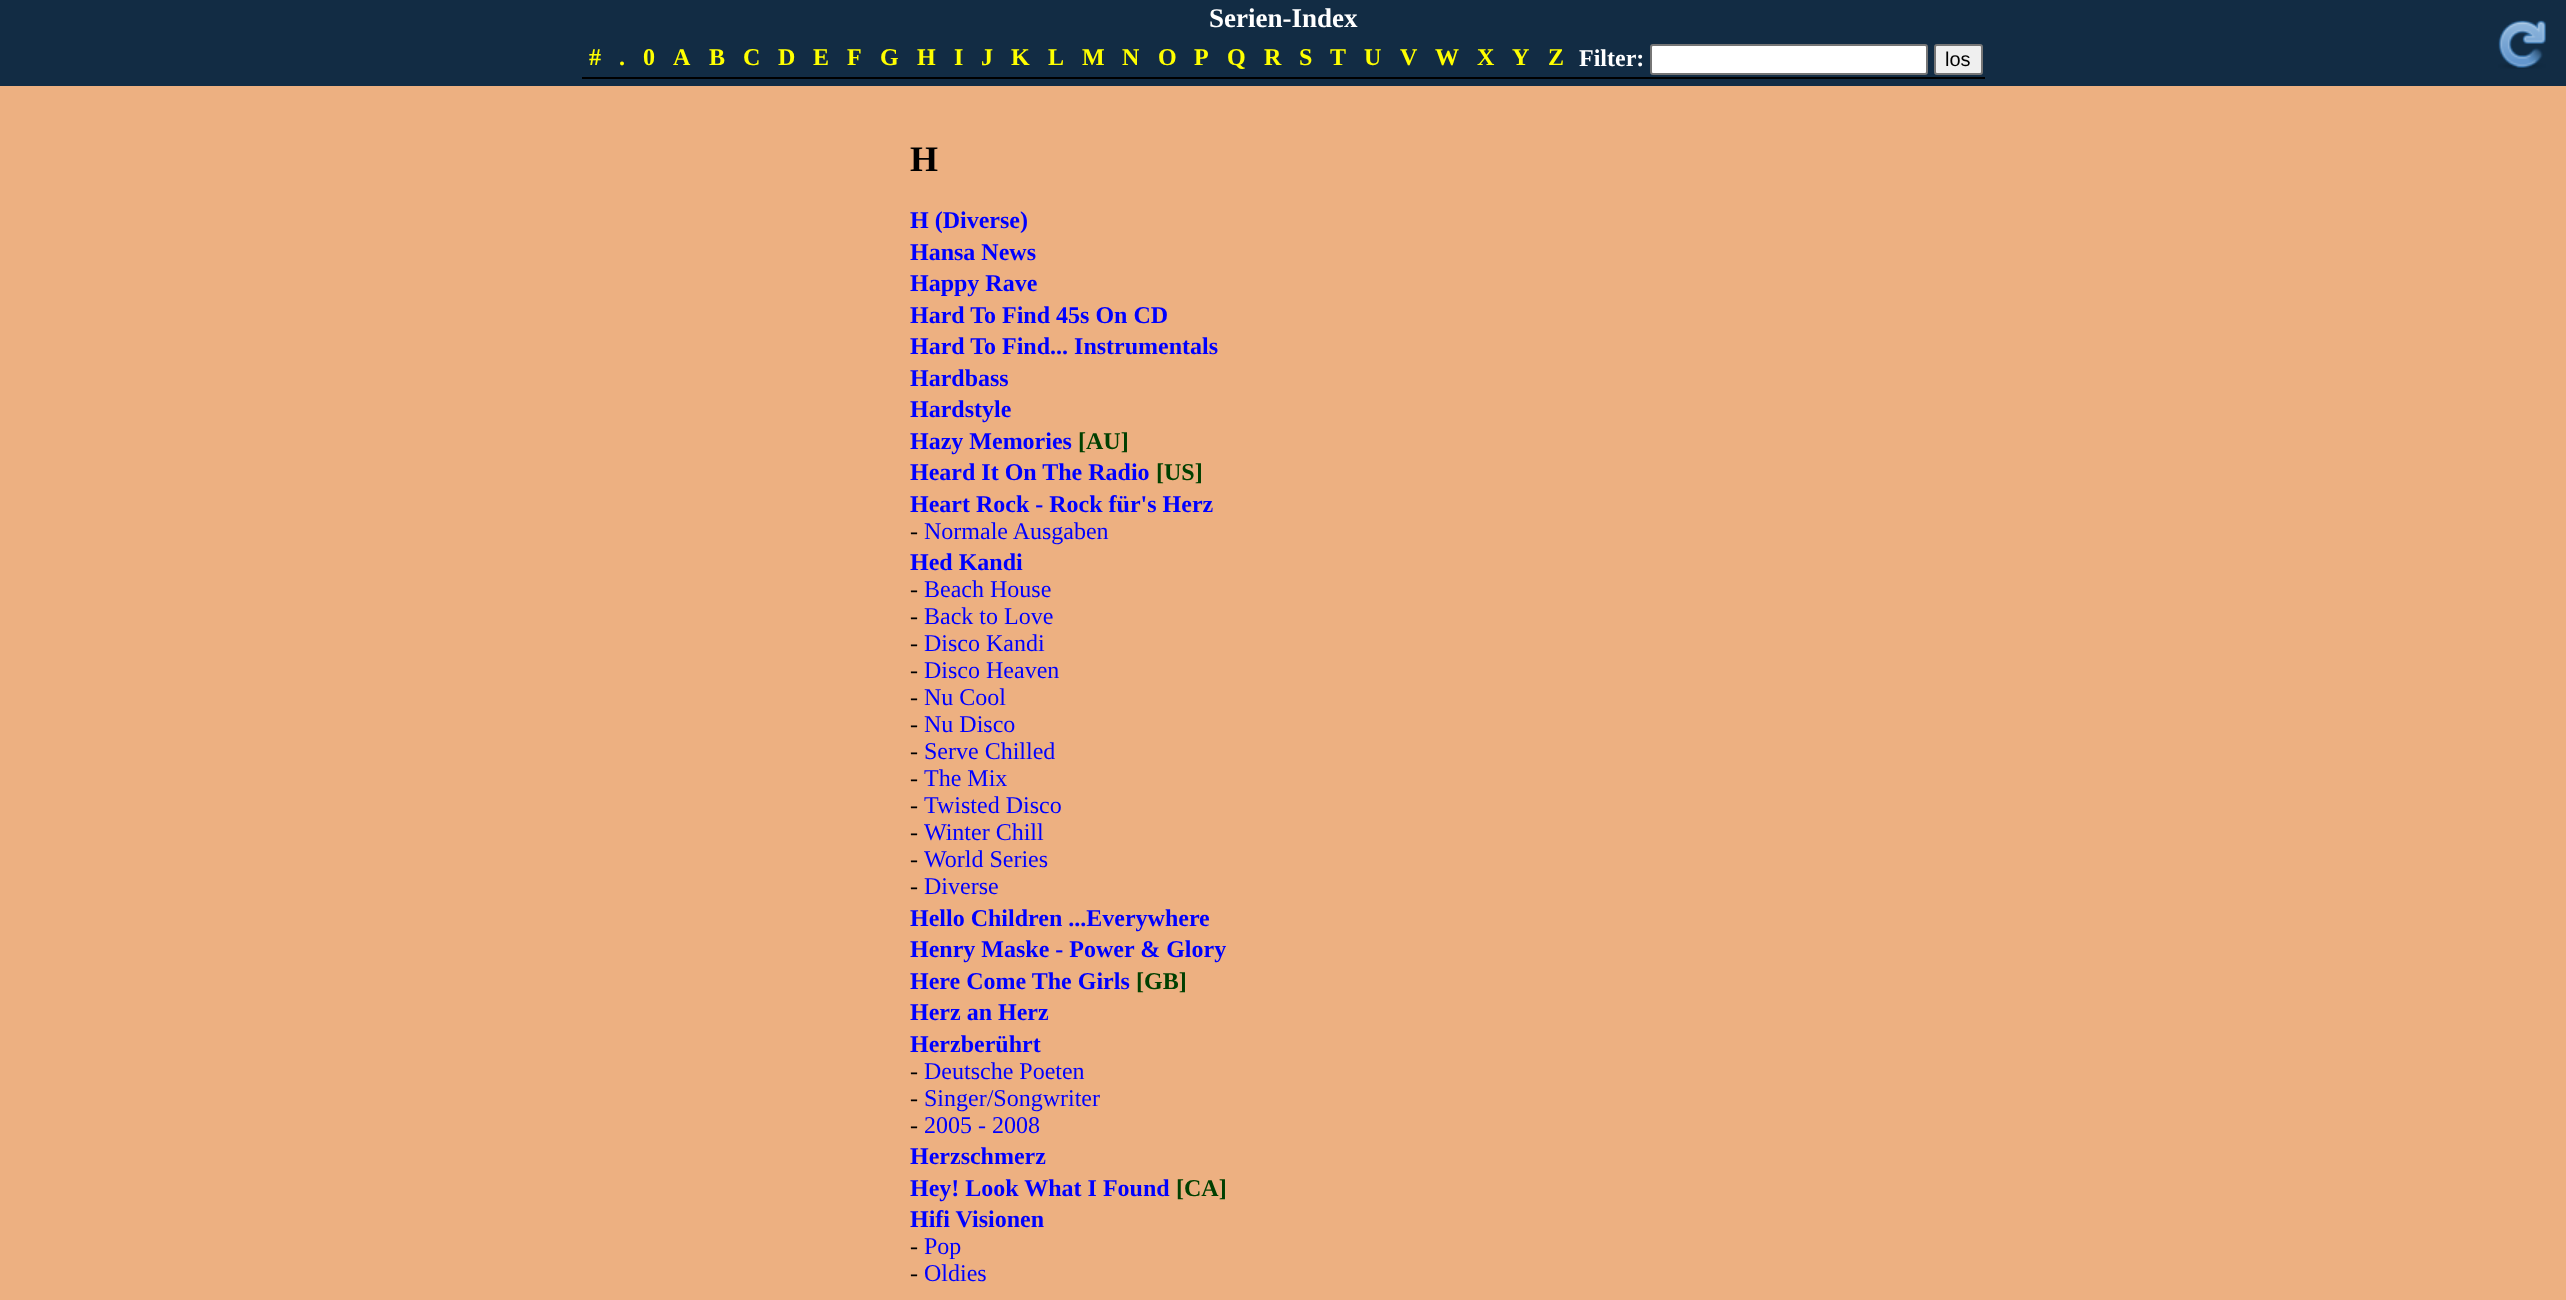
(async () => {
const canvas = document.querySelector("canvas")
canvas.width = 2566
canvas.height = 1300
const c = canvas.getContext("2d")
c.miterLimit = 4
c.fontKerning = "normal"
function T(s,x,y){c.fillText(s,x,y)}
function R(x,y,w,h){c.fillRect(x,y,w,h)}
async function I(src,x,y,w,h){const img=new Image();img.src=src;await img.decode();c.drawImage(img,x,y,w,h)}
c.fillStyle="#edb081"
R(0,0,2566,1300)
c.fillStyle="#122c44"
R(0,0,2566,86)
c.font="bold 27px Liberation Serif"
c.fillStyle="#fff"
T("Serien-Index",1209,27)
c.fillStyle="#000"
R(582,77,1403,2)
c.font="bold 24px Liberation Serif"
c.fillStyle="#ff0"
T("#",589,65)
T(".",619,65)
T("0",643,65)
T("A",673,65)
T("B",709,65)
T("C",743,65)
T("D",778,65)
T("E",813,65)
T("F",847,65)
T("G",880,65)
T("H",917,65)
T("I",954,65)
T("J",981,65)
T("K",1011,65)
T("L",1048,65)
T("M",1082,65)
T("N",1122,65)
T("O",1158,65)
T("P",1194,65)
T("Q",1227,65)
T("R",1264,65)
T("S",1299,65)
T("T",1330,65)
T("U",1364,65)
T("V",1400,65)
T("W",1435,65)
T("X",1477,65)
T("Y",1512,65)
T("Z",1548,65)
c.fillStyle="#fff"
T("Filter:",1579,66)
c.beginPath()
c.roundRect(1651,45,276,29,2)
c.fill()
c.strokeStyle="#767676"
c.lineWidth=2
c.stroke()
c.fillStyle="#efefef"
c.beginPath()
c.roundRect(1935,45,47,29,2)
c.fill()
c.stroke()
c.font="20px Liberation Sans"
c.fillStyle="#000"
T("los",1945,66)
await I("1.png",2498,20,48,49)
c.font="bold 36px Liberation Serif"
T("H",910,171)
c.font="bold 24px Liberation Serif"
c.fillStyle="#00f"
T("H (Diverse)",910,228)
T("Hansa News",910,260)
T("Happy Rave",910,291)
T("Hard To Find 45s On CD",910,323)
T("Hard To Find... Instrumentals",910,354)
T("Hardbass",910,386)
T("Hardstyle",910,417)
T("Hazy Memories",910,449)
c.fillStyle="#004000"
T("[AU]",1078,449)
c.fillStyle="#00f"
T("Heard It On The Radio",910,480)
c.fillStyle="#004000"
T("[US]",1156,480)
c.fillStyle="#00f"
T("Heart Rock - Rock für's Herz",910,512)
c.font="24px Liberation Serif"
c.fillStyle="#000"
T("-",910,539)
c.fillStyle="#00f"
T("Normale Ausgaben",924,539)
c.font="bold 24px Liberation Serif"
T("Hed Kandi",910,570)
c.font="24px Liberation Serif"
c.fillStyle="#000"
T("-",910,597)
c.fillStyle="#00f"
T("Beach House",924,597)
c.fillStyle="#000"
T("-",910,624)
c.fillStyle="#00f"
T("Back to Love",924,624)
c.fillStyle="#000"
T("-",910,651)
c.fillStyle="#00f"
T("Disco Kandi",924,651)
c.fillStyle="#000"
T("-",910,678)
c.fillStyle="#00f"
T("Disco Heaven",924,678)
c.fillStyle="#000"
T("-",910,705)
c.fillStyle="#00f"
T("Nu Cool",924,705)
c.fillStyle="#000"
T("-",910,732)
c.fillStyle="#00f"
T("Nu Disco",924,732)
c.fillStyle="#000"
T("-",910,759)
c.fillStyle="#00f"
T("Serve Chilled",924,759)
c.fillStyle="#000"
T("-",910,786)
c.fillStyle="#00f"
T("The Mix",924,786)
c.fillStyle="#000"
T("-",910,813)
c.fillStyle="#00f"
T("Twisted Disco",924,813)
c.fillStyle="#000"
T("-",910,840)
c.fillStyle="#00f"
T("Winter Chill",924,840)
c.fillStyle="#000"
T("-",910,867)
c.fillStyle="#00f"
T("World Series",924,867)
c.fillStyle="#000"
T("-",910,894)
c.fillStyle="#00f"
T("Diverse",924,894)
c.font="bold 24px Liberation Serif"
T("Hello Children ...Everywhere",910,926)
T("Henry Maske - Power & Glory",910,957)
T("Here Come The Girls",910,989)
c.fillStyle="#004000"
T("[GB]",1136,989)
c.fillStyle="#00f"
T("Herz an Herz",910,1020)
T("Herzberührt",910,1052)
c.font="24px Liberation Serif"
c.fillStyle="#000"
T("-",910,1079)
c.fillStyle="#00f"
T("Deutsche Poeten",924,1079)
c.fillStyle="#000"
T("-",910,1106)
c.fillStyle="#00f"
T("Singer/Songwriter",924,1106)
c.fillStyle="#000"
T("-",910,1133)
c.fillStyle="#00f"
T("2005 - 2008",924,1133)
c.font="bold 24px Liberation Serif"
T("Herzschmerz",910,1164)
T("Hey! Look What I Found",910,1196)
c.fillStyle="#004000"
T("[CA]",1176,1196)
c.fillStyle="#00f"
T("Hifi Visionen",910,1227)
c.font="24px Liberation Serif"
c.fillStyle="#000"
T("-",910,1254)
c.fillStyle="#00f"
T("Pop",924,1254)
c.fillStyle="#000"
T("-",910,1281)
c.fillStyle="#00f"
T("Oldies",924,1281)
})()
